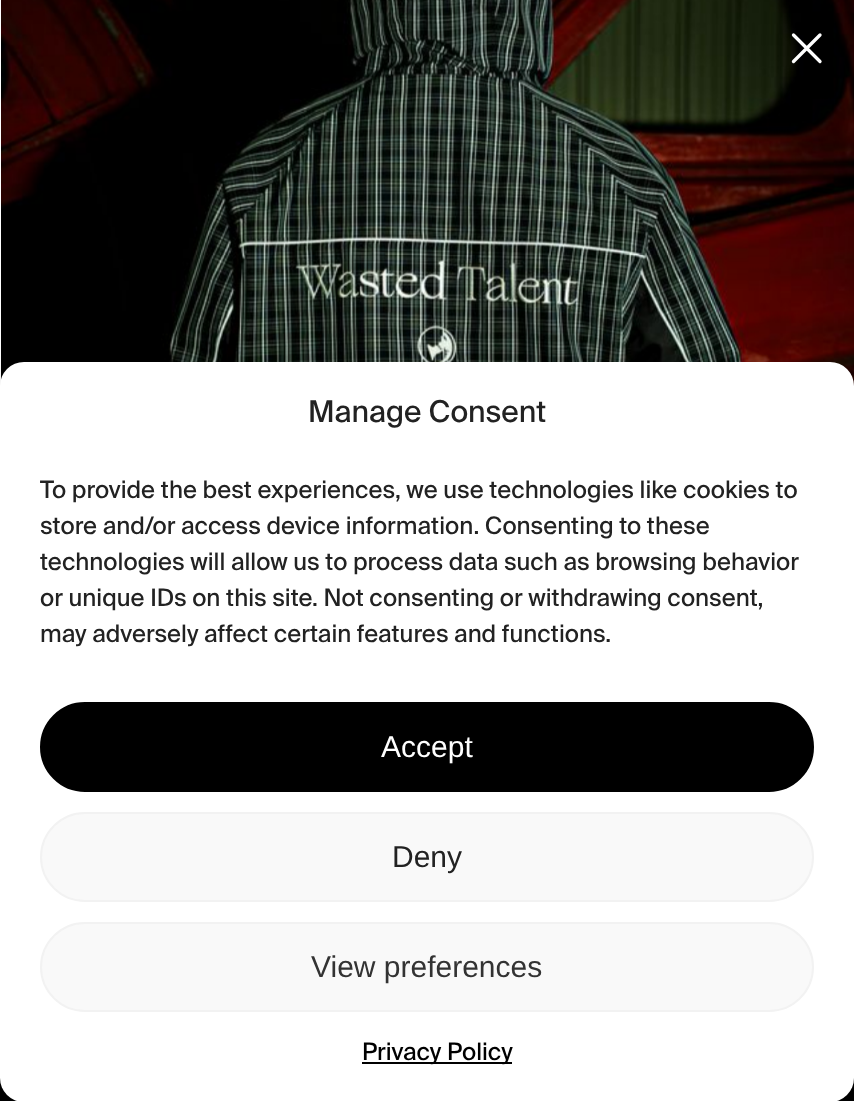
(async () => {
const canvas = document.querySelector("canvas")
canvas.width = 854
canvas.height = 1101
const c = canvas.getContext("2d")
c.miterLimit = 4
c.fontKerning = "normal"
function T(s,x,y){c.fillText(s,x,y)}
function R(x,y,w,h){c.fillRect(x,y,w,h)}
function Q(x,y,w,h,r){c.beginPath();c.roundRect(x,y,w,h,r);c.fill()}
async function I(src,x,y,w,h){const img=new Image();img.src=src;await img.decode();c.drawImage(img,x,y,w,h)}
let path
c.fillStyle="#fff"
R(0,0,854,1101)
await I("1.png",1,0,853,386)
c.fillStyle="#000"
R(0,1078,854,23)
path = new Path2D("M793.5 35l26.5 26.5m-26.5 0l26.5-26.5z")
c.strokeStyle="#fff"
c.lineWidth=3.3
c.lineCap="round"
c.lineJoin="round"
c.stroke(path)
c.fillStyle="#0000003b"
c.filter="blur(6px)"
c.beginPath()
c.roundRect(0,374,854,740,24)
c.fill()
c.filter="none"
c.fillStyle="#00000030"
c.filter="blur(20px)"
c.beginPath()
c.roundRect(0,382,854,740,24)
c.fill()
c.filter="none"
c.fillStyle="#fff"
Q(0,362,854,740,24)
c.font="30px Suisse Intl"
c.fillStyle="#222"
T("Manage Consent",308,422)
c.font="24px Suisse Intl"
T("To provide the best experiences, we use technologies like cookies to",40,498)
T("store and/or access device information. Consenting to these",40,534)
T("technologies will allow us to process data such as browsing behavior",40,570)
T("or unique IDs on this site. Not consenting or withdrawing consent,",40,606)
T("may adversely affect certain features and functions.",40,642)
c.fillStyle="#000"
c.beginPath()
c.roundRect(41,703,772,88,44)
c.fill()
c.strokeStyle="#000"
c.lineWidth=2
c.lineJoin="miter"
c.stroke()
c.font="30px Liberation Sans"
c.fillStyle="#fff"
T("Accept",381,757)
c.fillStyle="#f9f9f9"
c.beginPath()
c.roundRect(41,813,772,88,44)
c.fill()
c.strokeStyle="#f2f2f2"
c.stroke()
c.fillStyle="#222"
T("Deny",392,867)
c.fillStyle="#f9f9f9"
c.beginPath()
c.roundRect(41,923,772,88,44)
c.fill()
c.stroke()
c.fillStyle="#333"
T("View preferences",311,977)
c.fillStyle="#000"
R(362,1062,150,2)
c.font="24px Suisse Intl"
T("Privacy Policy",362,1060)
})()
